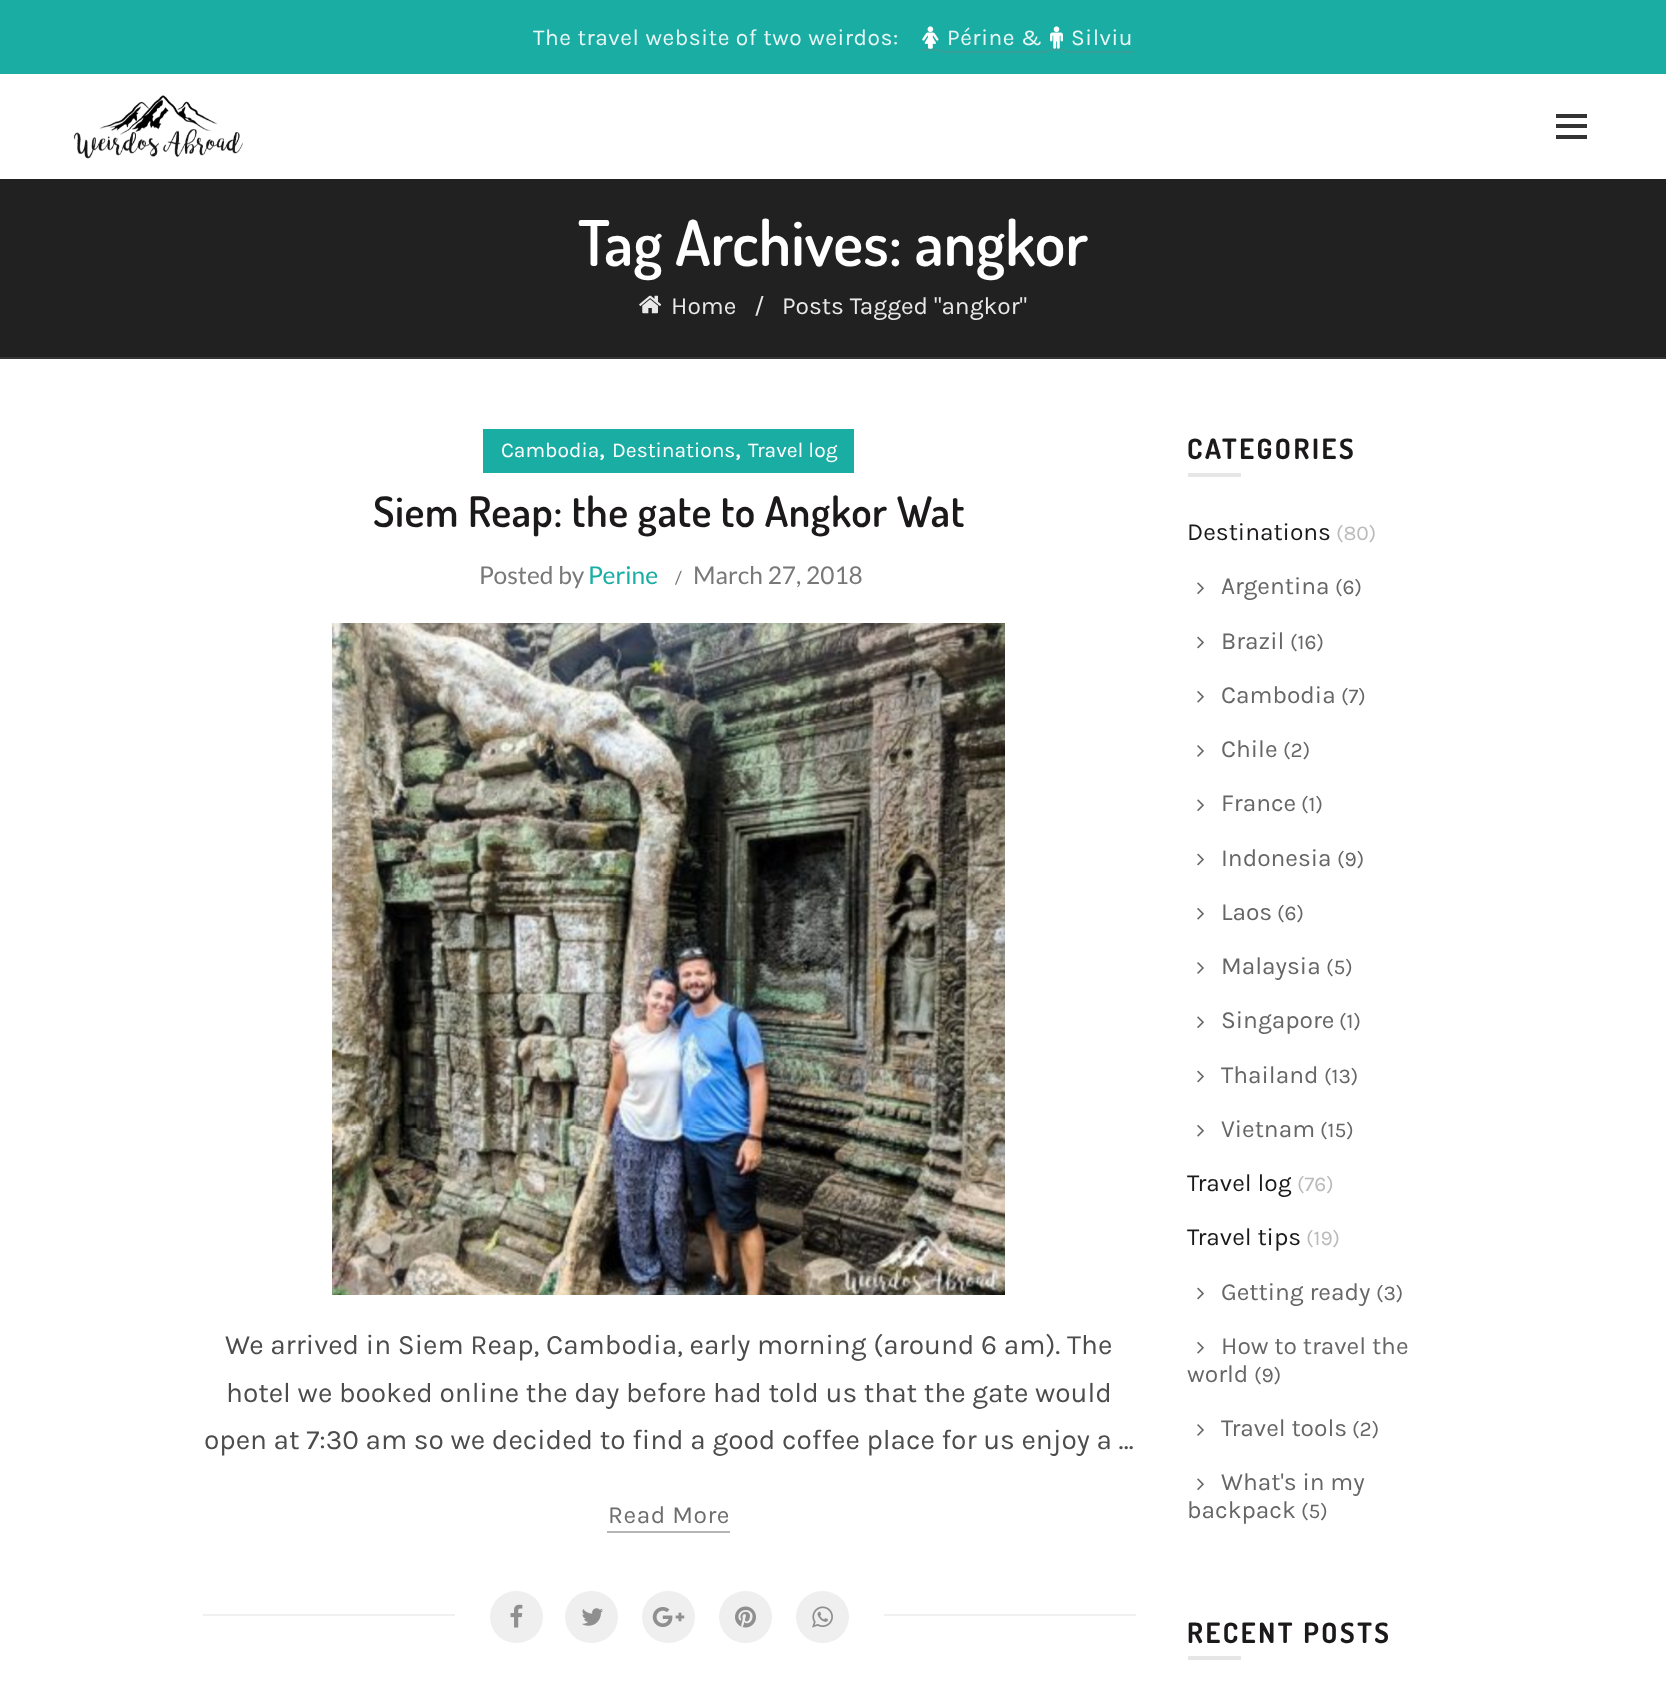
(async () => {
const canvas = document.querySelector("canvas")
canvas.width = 1666
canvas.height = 1707
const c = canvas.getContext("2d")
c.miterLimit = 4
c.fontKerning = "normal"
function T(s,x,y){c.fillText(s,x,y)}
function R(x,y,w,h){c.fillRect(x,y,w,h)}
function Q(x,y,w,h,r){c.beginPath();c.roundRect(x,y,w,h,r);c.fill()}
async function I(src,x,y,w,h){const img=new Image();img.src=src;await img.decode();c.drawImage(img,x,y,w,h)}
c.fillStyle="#fff"
R(0,0,1666,1707)
c.fillStyle="#1aada3"
R(0,0,1666,74)
c.letterSpacing="0.55px"
c.font="22.75px Karla"
c.fillStyle="#e8f7f6"
T("The travel website of two weirdos:",533,45)
c.fillStyle="#389f98"
R(921,49,21,2)
R(942,51,106,2)
R(1048,49,18,2)
R(1066,51,68,2)
await I("1.png",922,26,17,23)
c.fillStyle="#e8f7f6"
T("Périne &",947,45)
await I("2.png",1050,26,13,23)
T("Silviu",1071,45)
await I("3.png",73,95,170,64)
c.fillStyle="#333"
R(1556,124,31,4)
R(1556,114,31,4)
R(1556,135,31,4)
c.fillStyle="#212121"
R(0,179,1666,178)
c.fillStyle="#353535"
R(0,357,1666,2)
c.letterSpacing="0px"
c.font="600 63px Dosis"
c.fillStyle="#fff"
T("Tag Archives: angkor",578,266)
await I("4.png",639,295,23,19)
c.font="24.5px Karla"
c.fillStyle="#e9e9e9"
T("Home",671,314)
T("/",754,314)
T("Posts Tagged \"angkor\"",782,314)
c.fillStyle="#1aada3"
R(483,429,371,44)
c.font="21px Karla"
c.fillStyle="#fff"
T("Cambodia",501,457)
c.font="28px Karla"
T(",",599,457)
c.font="21px Karla"
T("Destinations",612,457)
c.font="28px Karla"
T(",",735,457)
c.font="21px Karla"
T("Travel log",748,457)
c.letterSpacing="0.55px"
c.font="600 42px Dosis"
c.fillStyle="#1b1919"
T("Siem Reap: the gate to Angkor Wat",373,527)
c.letterSpacing="0px"
c.font="24.5px Lato"
c.fillStyle="#787878"
T("Posted by",479,584)
c.fillStyle="#1aada3"
T("Perine",588,584)
c.font="18px Lato"
c.fillStyle="#787878"
T("/",675,584)
c.font="24.5px Lato"
T("March 27, 2018",693,584)
await I("5.png",332,623,673,672)
c.font="28px Karla"
c.fillStyle="#4c4c4c"
T("We arrived in Siem Reap, Cambodia, early morning (around 6 am). The",225,1354)
T("hotel we booked online the day before had told us that the gate would",226,1402)
T("open at 7:30 am so we decided to find a good coffee place for us enjoy a …",204,1449)
c.fillStyle="#b5b5b5"
R(607,1531,123,2)
c.letterSpacing="0.55px"
c.font="24.5px Karla"
c.fillStyle="#6d6d6d"
T("Read More",608,1523)
c.fillStyle="#f0f0f0"
R(203,1614,252,2)
c.fillStyle="#efefef"
Q(490,1591,53,52,26)
await I("6.png",510,1604,13,24)
Q(565,1591,53,52,26)
await I("7.png",582,1608,21,18)
Q(642,1591,53,52,26)
await I("8.png",652,1607,33,20)
Q(719,1591,53,52,26)
await I("9.png",735,1606,21,22)
Q(796,1591,53,52,26)
await I("10.png",812,1606,21,22)
c.fillStyle="#f0f0f0"
R(884,1614,252,2)
c.letterSpacing="2.6px"
c.font="bold 28px Dosis"
c.fillStyle="#1b1919"
T("CATEGORIES",1187,459)
c.fillStyle="#e6e6e6"
R(1188,473,53,4)
c.letterSpacing="0px"
c.font="24.5px Karla"
c.fillStyle="#1b1919"
T("Destinations",1187,540)
c.font="21px Karla"
c.fillStyle="#bbb"
T("(80)",1336,540)
await I("11.png",1197,582,7,12)
c.font="24.5px Karla"
c.fillStyle="#666"
T("Argentina",1221,594)
c.font="21px Karla"
T("(6)",1335,594)
await I("12.png",1197,636,7,13)
c.font="24.5px Karla"
T("Brazil",1221,649)
c.font="21px Karla"
T("(16)",1290,649)
await I("13.png",1197,691,7,12)
c.font="24.5px Karla"
T("Cambodia",1221,703)
c.font="21px Karla"
T("(7)",1341,703)
await I("14.png",1197,745,7,12)
c.font="24.5px Karla"
T("Chile",1221,757)
c.font="21px Karla"
T("(2)",1283,757)
await I("11.png",1197,799,7,12)
c.font="24.5px Karla"
T("France",1221,811)
c.font="21px Karla"
T("(1)",1301,811)
await I("12.png",1197,853,7,13)
c.font="24.5px Karla"
T("Indonesia",1221,866)
c.font="21px Karla"
T("(9)",1337,866)
await I("13.png",1197,908,7,12)
c.font="24.5px Karla"
T("Laos",1221,920)
c.font="21px Karla"
T("(6)",1277,920)
await I("14.png",1197,962,7,12)
c.font="24.5px Karla"
T("Malaysia",1221,974)
c.font="21px Karla"
T("(5)",1326,974)
await I("11.png",1197,1016,7,12)
c.font="24.5px Karla"
T("Singapore",1221,1028)
c.font="21px Karla"
T("(1)",1339,1028)
await I("12.png",1197,1070,7,13)
c.font="24.5px Karla"
T("Thailand",1221,1083)
c.font="21px Karla"
T("(13)",1324,1083)
await I("13.png",1197,1125,7,12)
c.font="24.5px Karla"
T("Vietnam",1221,1137)
c.font="21px Karla"
T("(15)",1320,1137)
c.font="24.5px Karla"
c.fillStyle="#1b1919"
T("Travel log",1187,1191)
c.font="21px Karla"
c.fillStyle="#bbb"
T("(76)",1297,1191)
c.font="24.5px Karla"
c.fillStyle="#1b1919"
T("Travel tips",1187,1245)
c.font="21px Karla"
c.fillStyle="#bbb"
T("(19)",1306,1245)
await I("12.png",1197,1287,7,13)
c.font="24.5px Karla"
c.fillStyle="#666"
T("Getting ready",1221,1300)
c.font="21px Karla"
T("(3)",1376,1300)
await I("13.png",1197,1342,7,12)
c.font="24.5px Karla"
T("How to travel the",1221,1354)
T("world",1187,1382)
c.font="21px Karla"
T("(9)",1254,1382)
await I("14.png",1197,1424,7,12)
c.font="24.5px Karla"
T("Travel tools",1221,1436)
c.font="21px Karla"
T("(2)",1352,1436)
await I("11.png",1197,1478,7,12)
c.font="24.5px Karla"
T("What's in my",1221,1490)
T("backpack",1187,1518)
c.font="21px Karla"
T("(5)",1301,1518)
c.letterSpacing="2.6px"
c.font="bold 28px Dosis"
c.fillStyle="#1b1919"
T("RECENT POSTS",1187,1643)
c.fillStyle="#e6e6e6"
R(1188,1656,53,4)
})()
